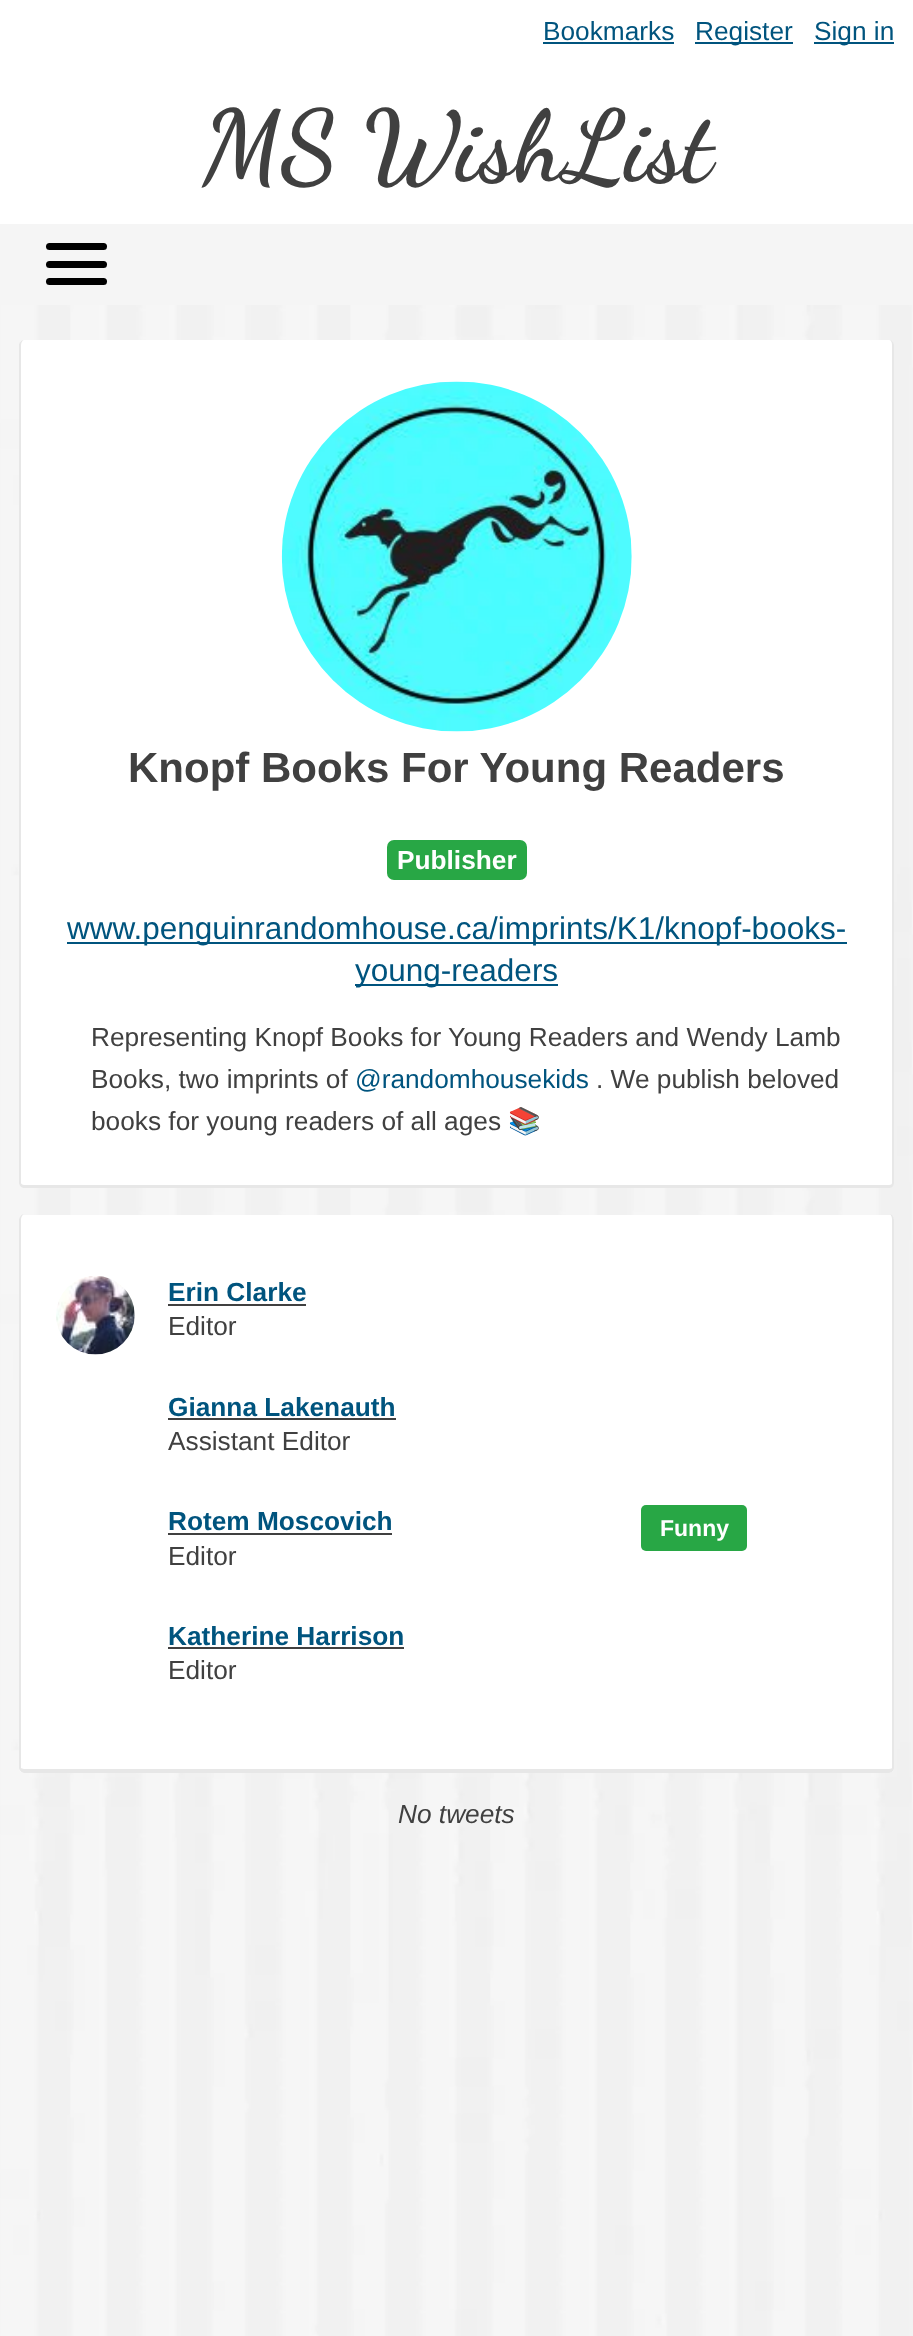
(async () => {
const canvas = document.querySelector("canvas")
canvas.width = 913
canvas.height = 2336
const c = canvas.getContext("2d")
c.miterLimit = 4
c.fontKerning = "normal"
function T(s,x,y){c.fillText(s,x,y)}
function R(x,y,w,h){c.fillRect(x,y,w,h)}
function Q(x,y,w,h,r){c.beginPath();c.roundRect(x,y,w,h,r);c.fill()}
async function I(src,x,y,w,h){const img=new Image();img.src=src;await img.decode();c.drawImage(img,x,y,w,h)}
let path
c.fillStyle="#fff"
R(0,0,913,2336)
await I("1.png",0,305,913,2031)
c.font="26.25px Liberation Sans"
c.fillStyle="#00547e"
T("Bookmarks",543,40)
R(543,42,131,2)
R(695,42,98,2)
T("Register",695,40)
R(814,42,80,2)
T("Sign in",814,40)
c.font="bold 99.75px Dancing Script"
c.fillStyle="#404040"
T("MS WishList",202,179)
c.fillStyle="#f5f5f5"
R(0,224,913,81)
c.fillStyle="#000"
Q(46,261,61,7,3.5)
Q(46,243,61,7,3.5)
Q(46,278,61,7,3.5)
c.fillStyle="#fff"
Q(19,340,875,848,5)
c.fillStyle="#e7e7e7"
path = new Path2D("M24 340h865c3 0 5 2 5 5v838c0 3-2 5-5 5h-865c-2 0-5-2-5-5v-838c0-3 3-5 5-5zm0 0h865c2 0 3 2 3 5v838c0 1-1 2-3 2h-865c-1 0-3-1-3-2v-838c0-3 2-5 3-5z")
c.fill(path,"evenodd")
await I("2.png",281,381,351,351)
c.font="bold 42px Liberation Sans"
c.fillStyle="#404040"
T("Knopf Books For Young Readers",128,782)
c.fillStyle="#28a745"
Q(387,840,140,40,7)
c.font="bold 26.25px Liberation Sans"
c.fillStyle="#fff"
T("Publisher",397,869)
c.fillStyle="#00547e"
R(67,942,780,2)
c.font="31.5px Liberation Sans"
T("www.penguinrandomhouse.ca/imprints/K1/knopf-books-",67,939)
R(355,984,203,2)
T("young-readers",355,981)
c.font="26.25px Liberation Sans"
c.fillStyle="#404040"
T("Representing Knopf Books for Young Readers and Wendy Lamb",91,1046)
T("Books, two imprints of",91,1088)
c.fillStyle="#00547e"
T("@randomhousekids",355,1088)
c.fillStyle="#404040"
T(". We publish beloved",596,1088)
T("books for young readers of all ages",91,1130)
c.font="26.25px Noto Color Emoji"
T("📚",508,1130)
c.fillStyle="#fff"
Q(19,1215,875,558,5)
c.fillStyle="#e7e7e7"
path = new Path2D("M24 1214h865c3 0 5 3 5 6v548c0 2-2 5-5 5h-865c-2 0-5-3-5-5v-548c0-3 3-6 5-6zm0 0h865c2 0 3 3 3 6v548c0 0-1 1-3 1h-865c-1 0-3-1-3-1v-548c0-3 2-6 3-6z")
c.fill(path,"evenodd")
await I("3.png",56,1276,79,79)
c.font="bold 26.25px Liberation Sans"
c.fillStyle="#00547e"
T("Erin Clarke",168,1301)
c.fillStyle="#404040"
R(168,1304,138,2)
c.font="26.25px Liberation Sans"
T("Editor",168,1335)
c.font="bold 26.25px Liberation Sans"
c.fillStyle="#00547e"
T("Gianna Lakenauth",168,1416)
c.fillStyle="#404040"
R(168,1418,228,2)
c.font="26.25px Liberation Sans"
T("Assistant Editor",168,1450)
c.font="bold 26.25px Liberation Sans"
c.fillStyle="#00547e"
T("Rotem Moscovich",168,1530)
c.fillStyle="#404040"
R(168,1533,224,2)
c.font="26.25px Liberation Sans"
T("Editor",168,1565)
c.fillStyle="#28a745"
Q(641,1505,106,46,5)
c.font="bold 23px Liberation Sans"
c.fillStyle="#fff"
T("Funny",660,1536)
c.font="bold 26.25px Liberation Sans"
c.fillStyle="#00547e"
T("Katherine Harrison",168,1645)
c.fillStyle="#404040"
R(168,1647,236,2)
c.font="26.25px Liberation Sans"
T("Editor",168,1679)
c.font="italic 26.25px Liberation Sans"
T("No tweets",398,1823)
})()
